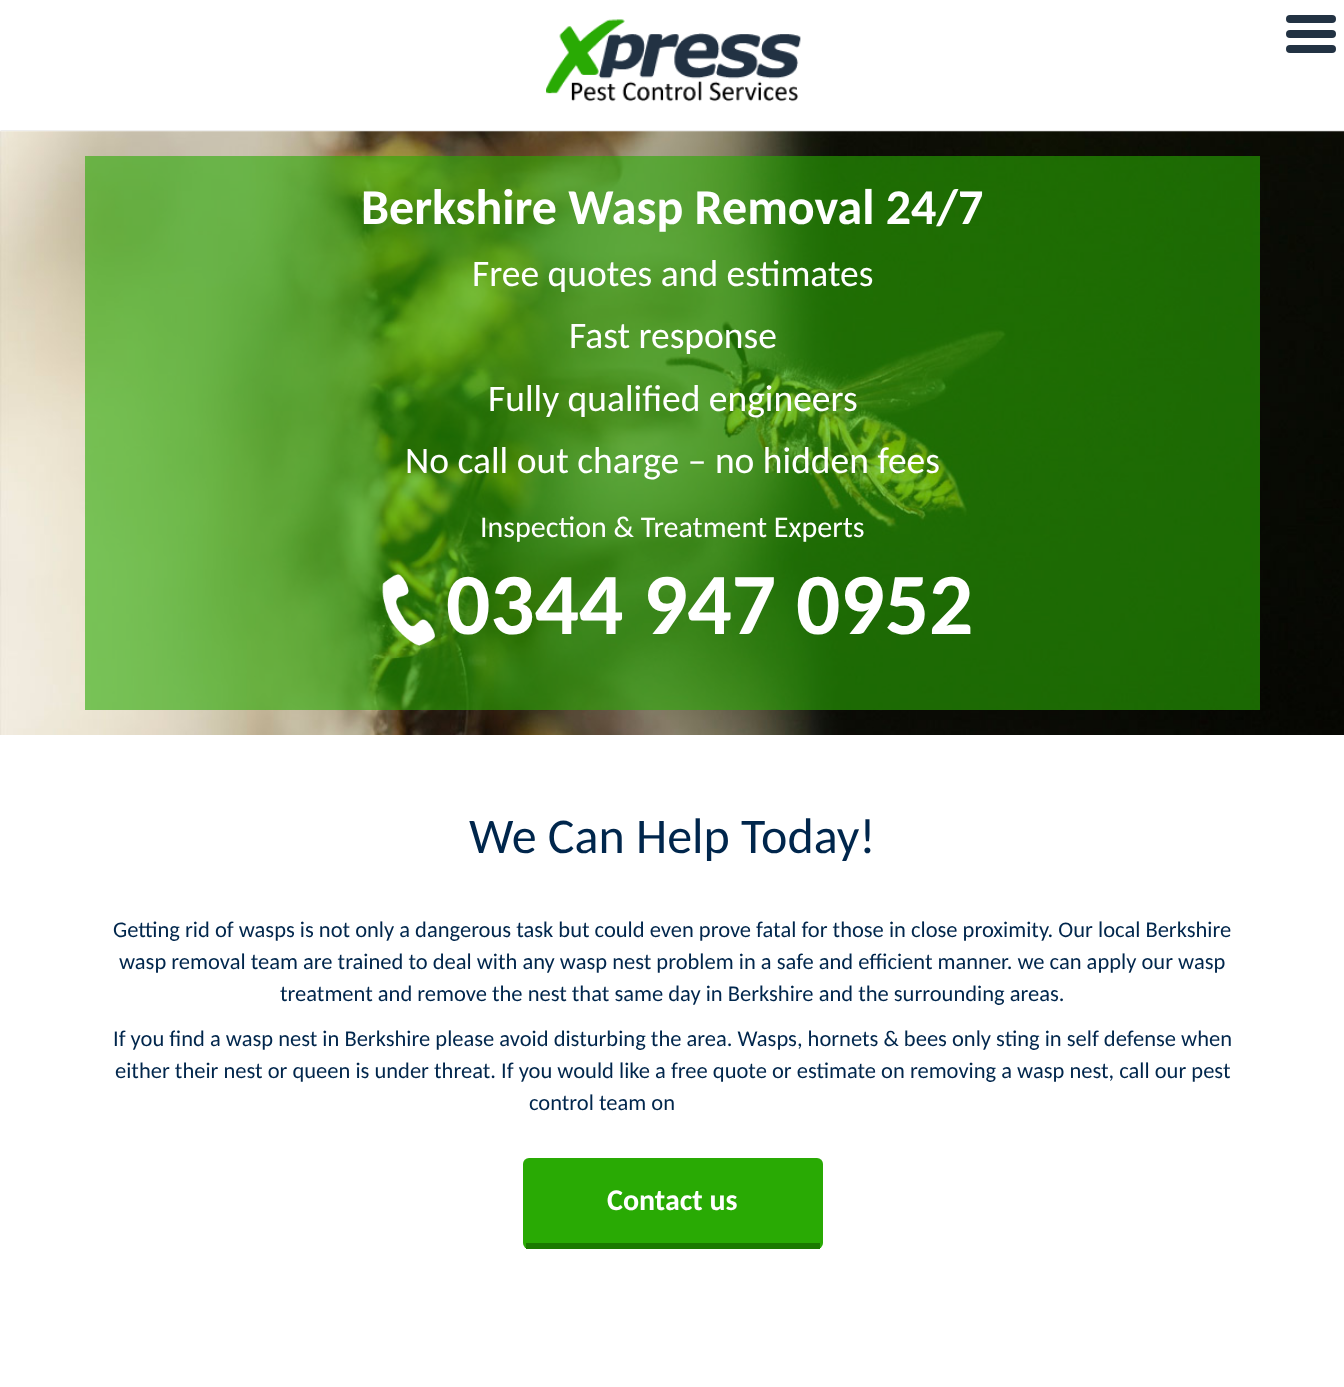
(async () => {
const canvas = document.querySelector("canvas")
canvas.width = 1344
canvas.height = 1387
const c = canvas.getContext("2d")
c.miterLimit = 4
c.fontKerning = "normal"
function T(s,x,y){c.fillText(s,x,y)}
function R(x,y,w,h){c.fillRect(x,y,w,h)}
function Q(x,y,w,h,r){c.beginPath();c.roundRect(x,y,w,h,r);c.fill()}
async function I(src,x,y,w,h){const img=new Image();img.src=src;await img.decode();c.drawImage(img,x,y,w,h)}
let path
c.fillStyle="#fff"
R(0,0,1344,1387)
c.fillStyle="#eee"
path = new Path2D("M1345 131h-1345l1-1h1343z")
c.fill(path)
await I("1.png",546,19,255,83)
c.fillStyle="#223243"
Q(1286,15,50,8,4)
Q(1286,30,50,8,4)
Q(1286,45,50,8,4)
await I("2.png",0,131,1344,604)
c.fillStyle="#29aa0499"
R(85,156,1175,554)
c.font="bold 50px Carlito"
c.fillStyle="#fff"
T("Berkshire Wasp Removal 24/7",361,224)
c.font="37.5px Carlito"
T("Free quotes and estimates",472,286)
T("Fast response",569,348)
T("Fully qualified engineers",488,411)
T("No call out charge – no hidden fees",405,473)
c.font="30px Carlito"
T("Inspection & Treatment Experts",480,537)
await I("3.png",382,574,53,72)
c.font="bold 87.5px Carlito"
T("0344 947 0952",446,634)
c.font="50px Carlito"
c.fillStyle="#00264c"
T("We Can Help Today!",469,853)
c.font="22.5px Carlito"
T("Getting rid of wasps is not only a dangerous task but could even prove fatal for those in close proximity. Our local Berkshire",113,937)
T("wasp removal team are trained to deal with any wasp nest problem in a safe and efficient manner. we can apply our wasp",119,969)
T("treatment and remove the nest that same day in Berkshire and the surrounding areas.",280,1001)
T("If you find a wasp nest in Berkshire please avoid disturbing the area. Wasps, hornets & bees only sting in self defense when",113,1046)
T("either their nest or queen is under threat. If you would like a free quote or estimate on removing a wasp nest, call our pest",115,1078)
T("control team on",529,1110)
c.fillStyle="#29aa04"
Q(523,1158,300,91,6)
c.fillStyle="#1b7900"
R(526,1243,294,6)
c.font="bold 30px Carlito"
c.fillStyle="#fff"
T("Contact us",607,1210)
})()
